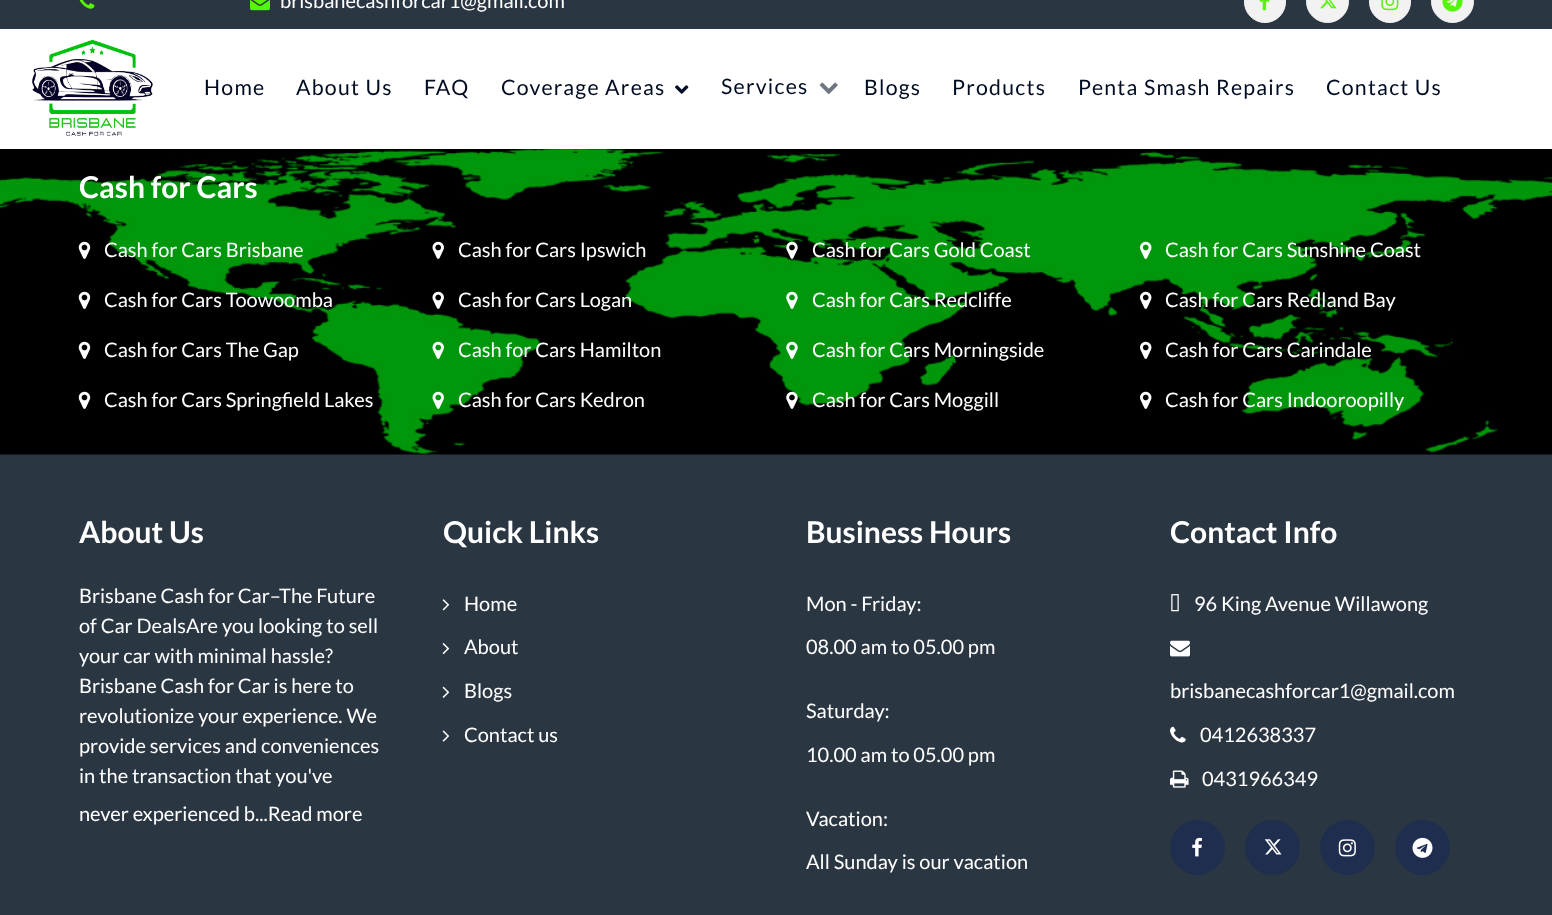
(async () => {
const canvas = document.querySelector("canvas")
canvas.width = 1552
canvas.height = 915
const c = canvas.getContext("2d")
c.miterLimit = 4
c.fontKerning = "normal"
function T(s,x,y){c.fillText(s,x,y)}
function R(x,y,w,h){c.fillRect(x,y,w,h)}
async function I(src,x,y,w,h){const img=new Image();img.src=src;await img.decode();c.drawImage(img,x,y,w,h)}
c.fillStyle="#2b3643"
R(0,0,1552,915)
await I("1.png",79,0,16,9)
await I("2.png",250,0,20,11)
c.font="20px Lato"
c.fillStyle="#fff"
T("brisbanecashforcar1@gmail.com",280,8)
c.fillStyle="#f2f2f2"
c.beginPath()
c.roundRect(1244.5,-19.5,41,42,20.5)
c.fill()
c.strokeStyle="#f2f2f2"
c.stroke()
await I("3.png",1259,0,11,11)
c.beginPath()
c.arc(1327.5,1.5,21,0,7)
c.fill()
c.stroke()
await I("4.png",1320,0,17,9)
c.beginPath()
c.roundRect(1369.5,-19.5,41,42,20.5)
c.fill()
c.stroke()
await I("5.png",1381,0,18,11)
c.beginPath()
c.arc(1452.5,1.5,21,0,7)
c.fill()
c.stroke()
await I("6.png",1442,0,21,12)
c.fillStyle="#fff"
R(0,29,1552,120)
await I("7.png",32,39,121,97)
c.letterSpacing="1.25px"
c.font="21.25px Lato"
c.fillStyle="#000c21"
T("Home",204,95)
T("About Us",296,95)
T("FAQ",424,95)
T("Coverage Areas",501,95)
await I("8.png",675,85,14,9)
T("Services",721,94)
await I("9.png",819,82,19,12)
T("Blogs",864,95)
T("Products",952,95)
T("Penta Smash Repairs",1078,95)
T("Contact Us",1326,95)
await I("10.png",0,149,1552,306)
c.letterSpacing="0px"
c.font="bold 30px Lato"
c.fillStyle="#fff"
T("Cash for Cars",79,198)
await I("11.png",78,241,13,18)
c.font="20px Lato"
T("Cash for Cars Brisbane",104,257)
await I("12.png",432,241,12,18)
T("Cash for Cars Ipswich",458,257)
await I("13.png",786,241,12,18)
T("Cash for Cars Gold Coast",812,257)
await I("14.png",1140,241,12,18)
T("Cash for Cars Sunshine Coast",1165,257)
await I("11.png",78,291,13,18)
T("Cash for Cars Toowoomba",104,307)
await I("15.png",432,291,12,18)
T("Cash for Cars Logan",458,307)
await I("16.png",786,291,12,18)
T("Cash for Cars Redcliffe",812,307)
await I("17.png",1140,291,12,18)
T("Cash for Cars Redland Bay",1165,307)
await I("11.png",78,341,13,18)
T("Cash for Cars The Gap",104,357)
await I("18.png",432,341,12,18)
T("Cash for Cars Hamilton",458,357)
await I("16.png",786,341,12,18)
T("Cash for Cars Morningside",812,357)
await I("17.png",1140,341,12,18)
T("Cash for Cars Carindale",1165,357)
await I("11.png",78,391,13,18)
T("Cash for Cars Springfield Lakes",104,407)
await I("19.png",432,391,12,18)
T("Cash for Cars Kedron",458,407)
await I("20.png",786,391,12,18)
T("Cash for Cars Moggill",812,407)
await I("17.png",1140,391,12,18)
T("Cash for Cars Indooroopilly",1165,407)
c.font="bold 30px Lato"
T("About Us",79,543)
c.font="20px Lato"
T("Brisbane Cash for Car–The Future",79,603)
T("of Car DealsAre you looking to sell",79,633)
T("your car with minimal hassle?",79,663)
T("Brisbane Cash for Car is here to",79,693)
T("revolutionize your experience. We",79,723)
T("provide services and conveniences",79,753)
T("in the transaction that you've",79,783)
T("never experienced b...Read more",79,821)
c.font="bold 30px Lato"
T("Quick Links",443,543)
await I("21.png",442,599,8,12)
c.font="20px Lato"
T("Home",464,611)
await I("22.png",442,643,8,12)
T("About",464,654)
await I("23.png",442,686,8,12)
T("Blogs",464,698)
await I("24.png",442,730,8,12)
T("Contact us",464,742)
c.font="bold 30px Lato"
T("Business Hours",806,543)
c.font="20px Lato"
T("Mon - Friday:",806,611)
T("08.00 am to 05.00 pm",806,654)
T("Saturday:",806,718)
T("10.00 am to 05.00 pm",806,762)
T("Vacation:",806,826)
T("All Sunday is our vacation",806,869)
c.font="bold 30px Lato"
T("Contact Info",1170,543)
await I("25.png",1171,594,8,18)
c.font="20px Lato"
T("96 King Avenue Willawong",1194,611)
await I("26.png",1170,640,20,17)
T("brisbanecashforcar1@gmail.com",1170,698)
await I("27.png",1170,726,16,17)
T("0412638337",1200,742)
await I("28.png",1170,770,19,18)
T("0431966349",1202,786)
c.fillStyle="#1f2e4e"
c.beginPath()
c.arc(1197.5,847.5,27,0,7)
c.fill()
c.strokeStyle="#1f2e4e"
c.stroke()
await I("29.png",1192,837,10,20)
c.beginPath()
c.arc(1272.5,847.5,27,0,7)
c.fill()
c.stroke()
await I("30.png",1264,839,18,16)
c.beginPath()
c.arc(1347.5,847.5,27,0,7)
c.fill()
c.stroke()
await I("31.png",1338,839,18,18)
c.beginPath()
c.arc(1422.5,847.5,27,0,7)
c.fill()
c.stroke()
await I("32.png",1412,837,21,21)
})()
